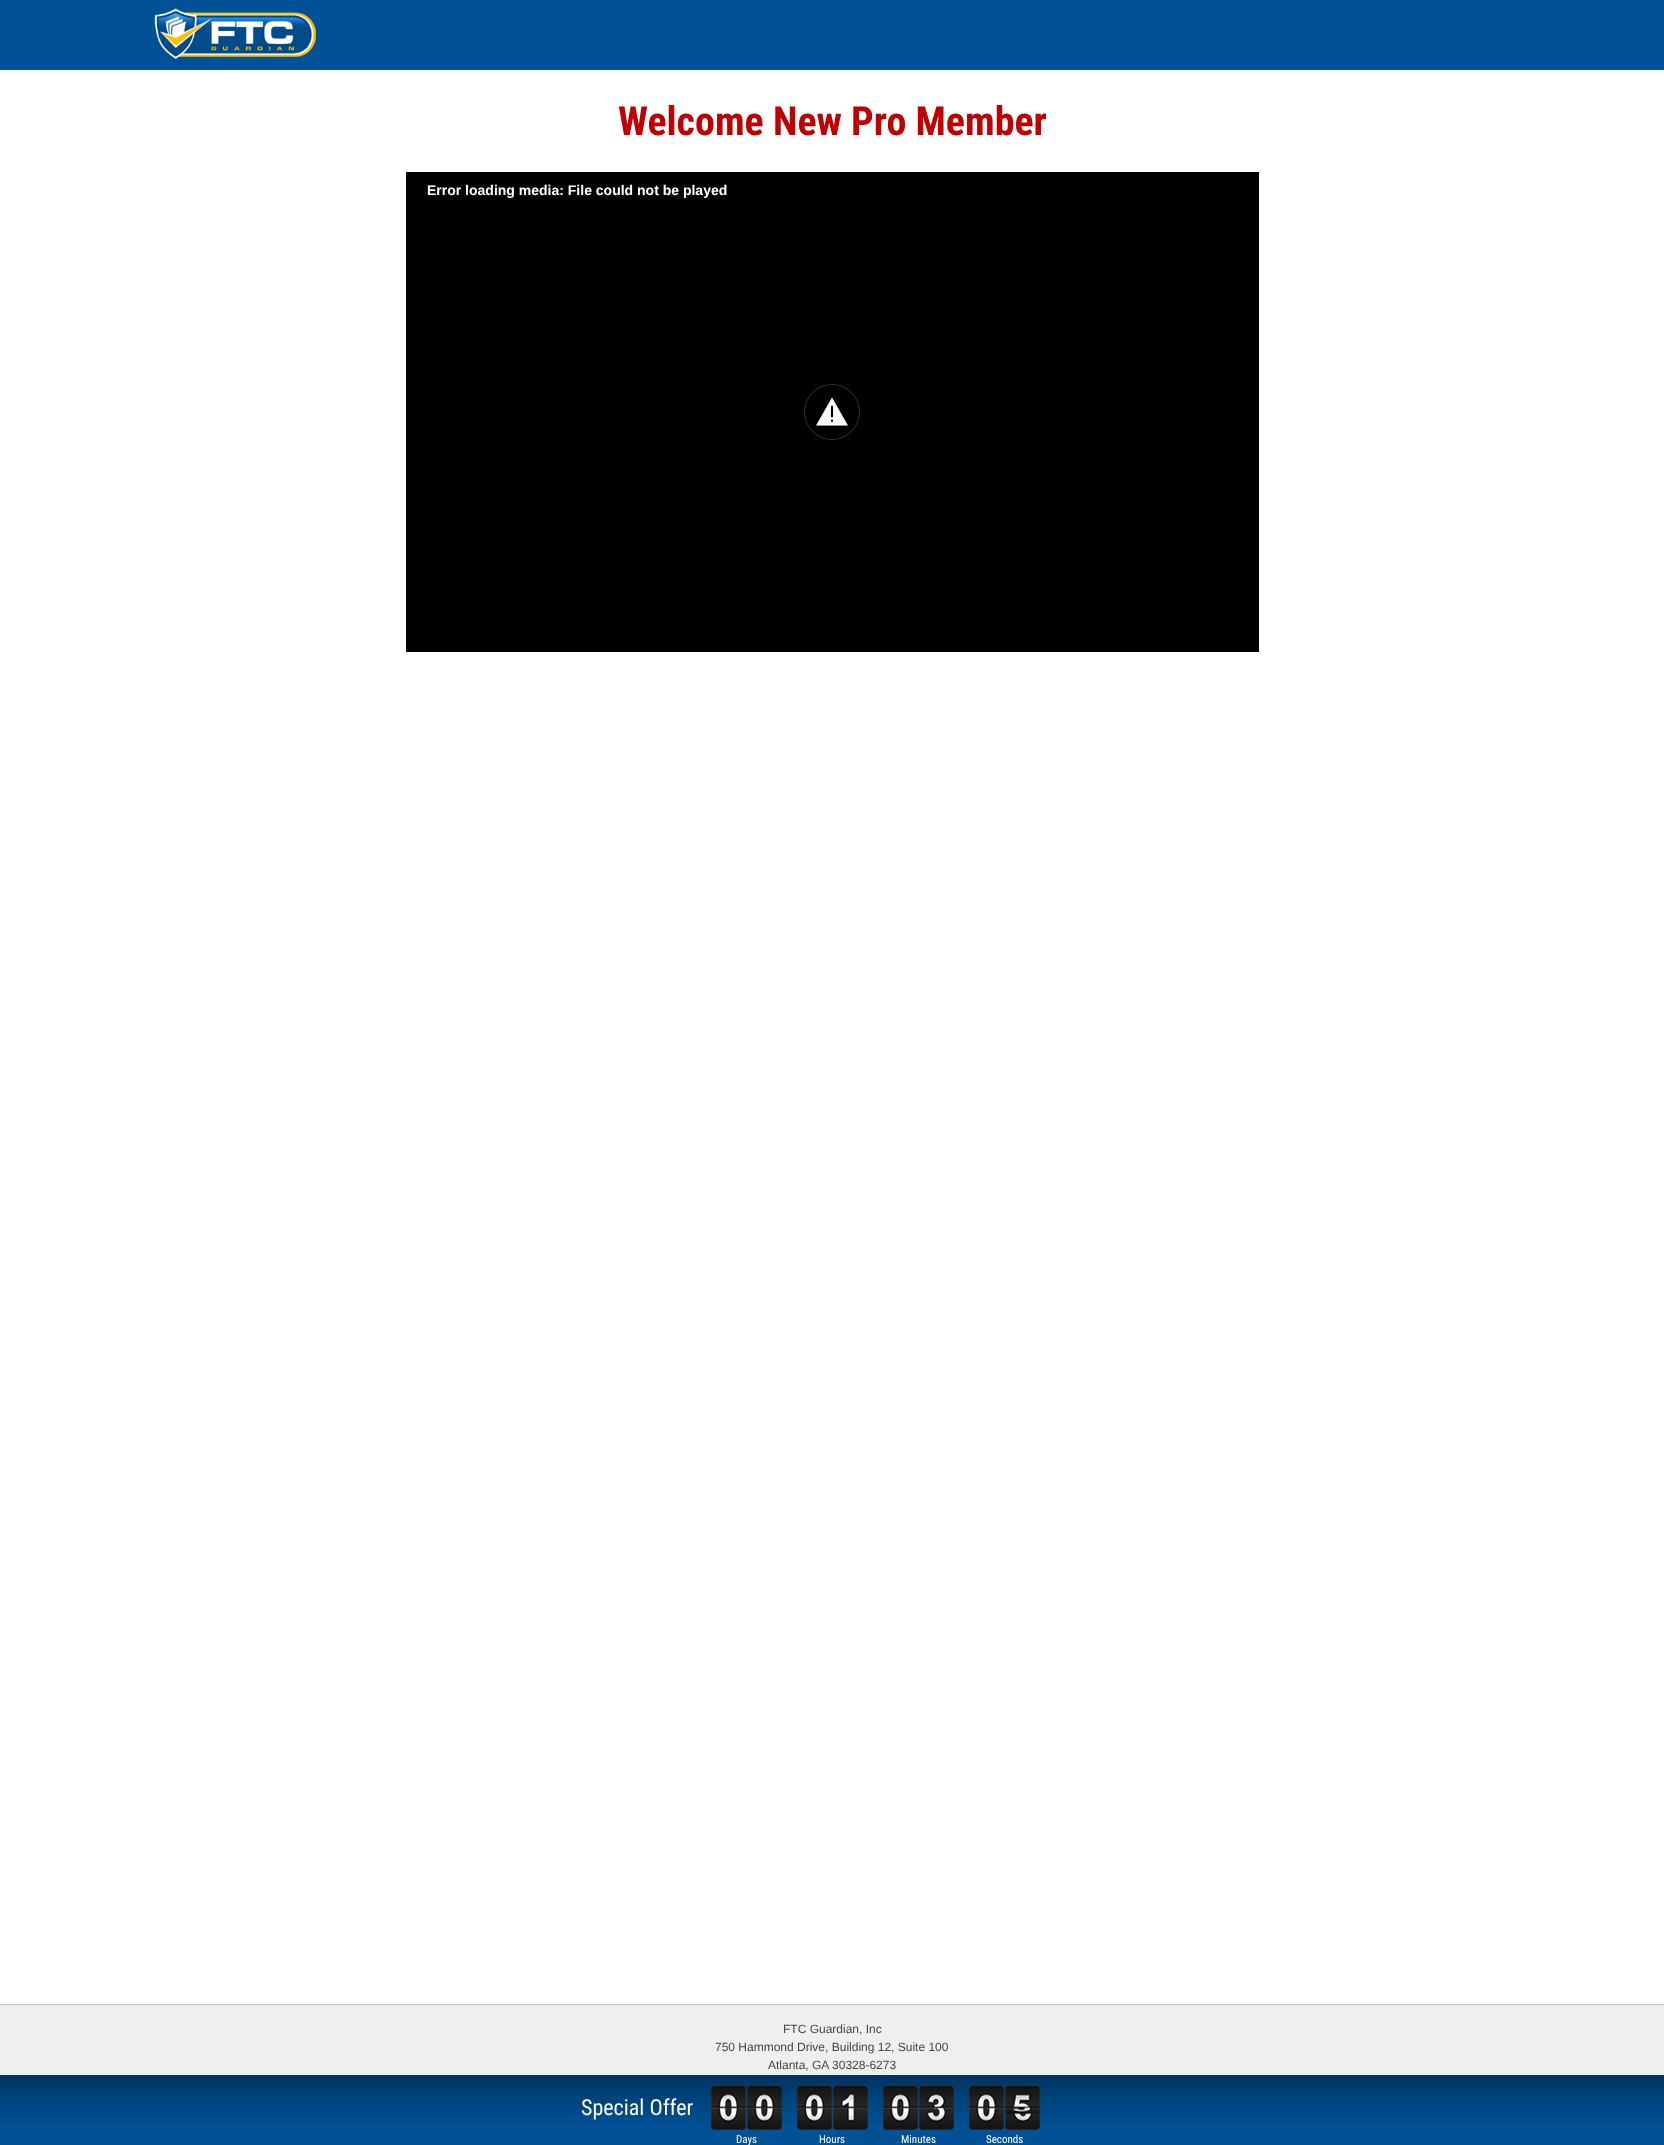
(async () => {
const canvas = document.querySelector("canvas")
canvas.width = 1664
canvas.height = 2145
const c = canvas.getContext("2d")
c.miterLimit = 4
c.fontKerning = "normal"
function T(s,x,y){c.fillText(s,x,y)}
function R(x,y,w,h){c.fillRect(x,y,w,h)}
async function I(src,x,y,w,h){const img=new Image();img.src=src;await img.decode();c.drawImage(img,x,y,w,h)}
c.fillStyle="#fff"
R(0,0,1664,2145)
c.fillStyle="#015196"
R(0,0,1664,70)
await I("1.png",154,8,162,51)
c.font="bold 40px Roboto Condensed"
c.fillStyle="#c00000"
T("Welcome New Pro Member",618,135)
c.fillStyle="#000"
R(406,172,853,480)
c.font="bold 14px Liberation Sans"
c.fillStyle="#fff"
T("Error loading media: File could not be played",427,195)
c.beginPath()
c.arc(832,412,27.5,0,7)
c.strokeStyle="#333"
c.stroke()
await I("2.png",816,397,32,29)
c.fillStyle="#efefef"
R(0,2005,1664,70)
c.fillStyle="#bebebe"
R(0,2004,1664,1)
c.font="12px Liberation Sans"
c.fillStyle="#444"
T("FTC Guardian, Inc",783,2033)
T("750 Hammond Drive, Building 12, Suite 100",715,2051)
T("Atlanta, GA 30328-6273",768,2069)
c.fillStyle="#015196"
R(0,2075,1664,70)
await I("3.png",0,2075,1664,49)
c.font="22px Roboto Condensed"
c.fillStyle="#fff"
T("Special Offer",581,2115)
await I("4.png",711,2085,35,45)
await I("4.png",747,2085,35,45)
c.font="11px Roboto Condensed"
T("Days",736,2143)
await I("4.png",797,2085,35,45)
await I("5.png",833,2085,35,45)
T("Hours",819,2143)
await I("4.png",883,2085,35,45)
await I("6.png",919,2085,35,45)
T("Minutes",901,2143)
await I("4.png",969,2085,35,45)
await I("7.png",1005,2085,35,45)
T("Seconds",986,2143)
})()
